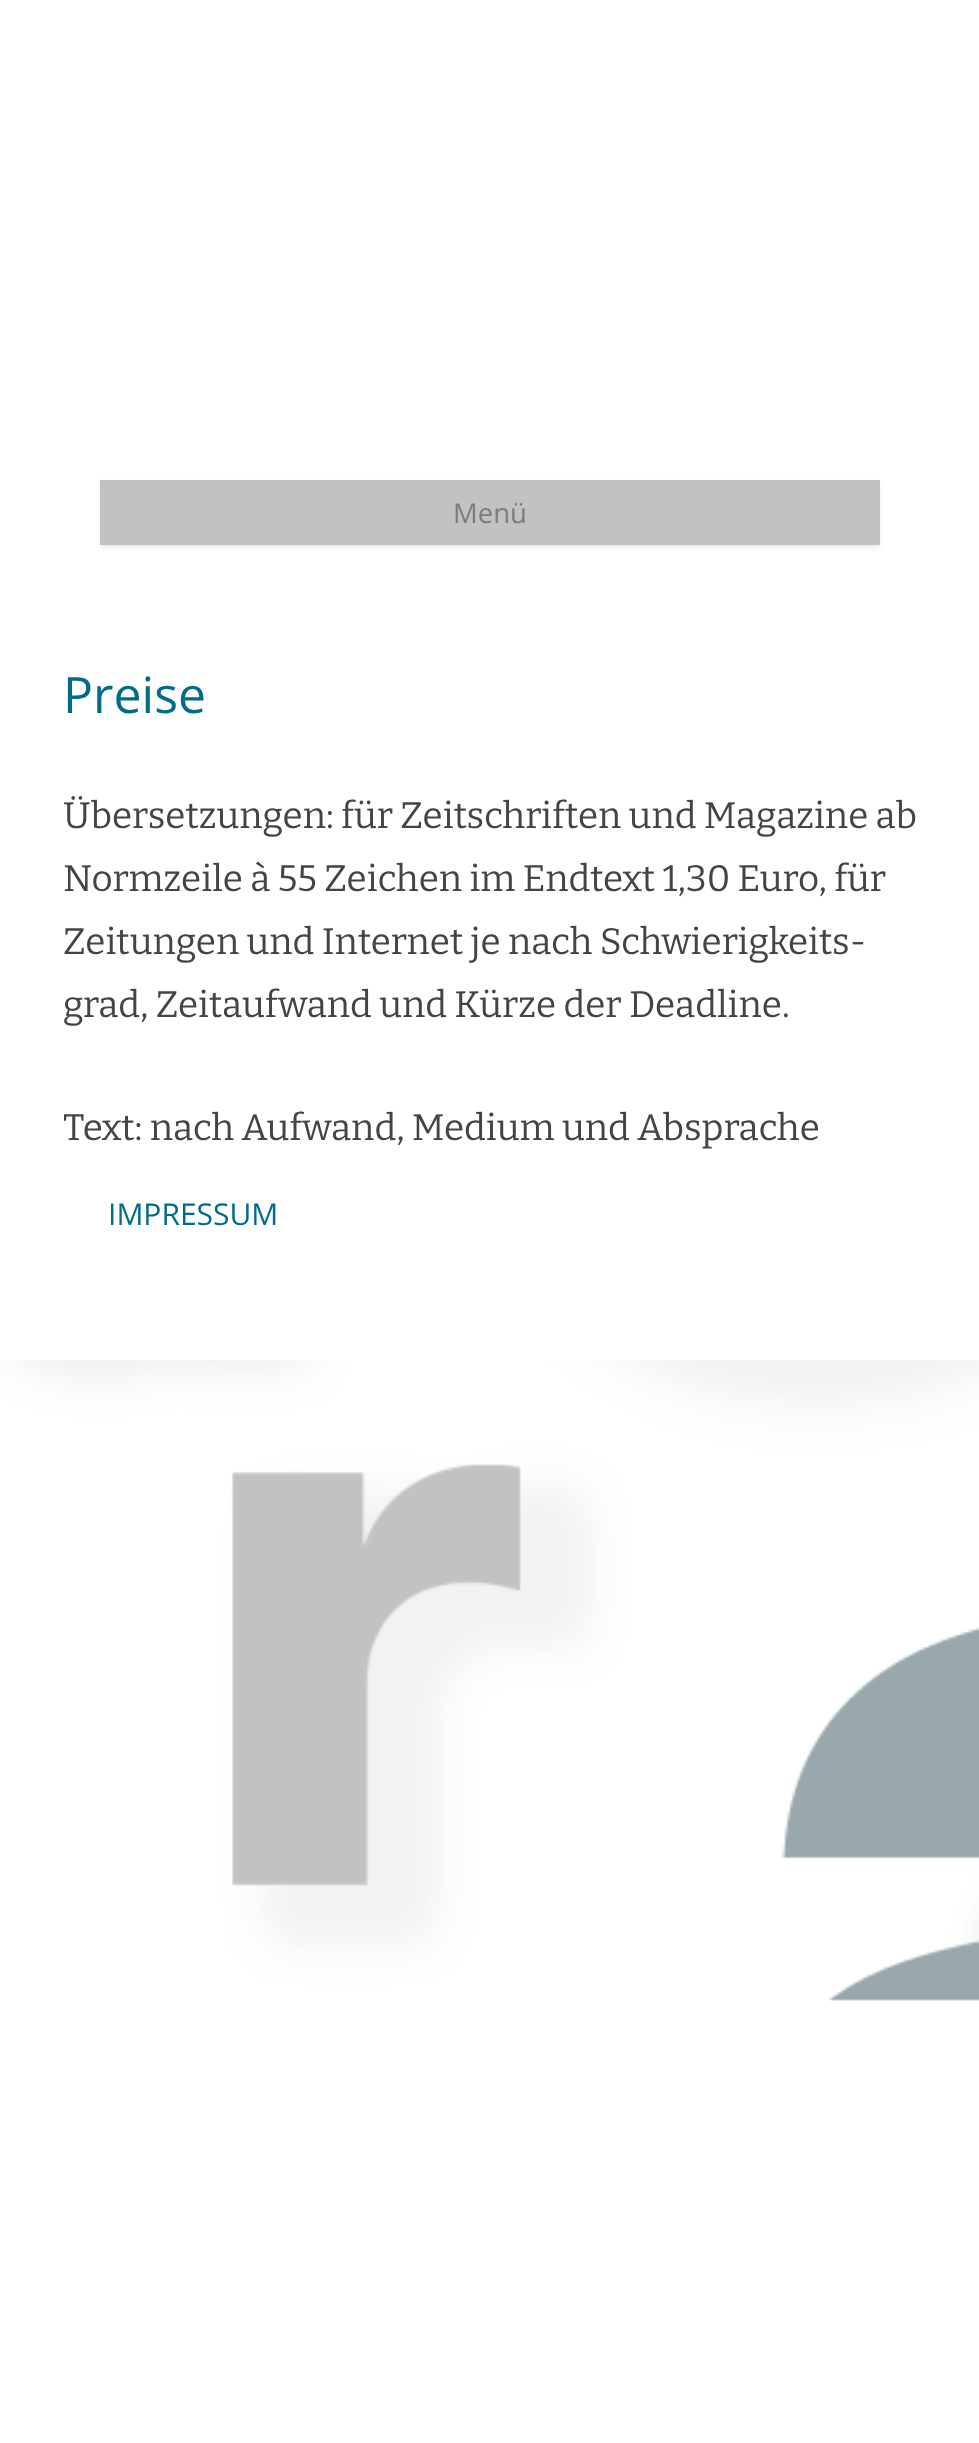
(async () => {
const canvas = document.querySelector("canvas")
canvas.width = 979
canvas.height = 2443
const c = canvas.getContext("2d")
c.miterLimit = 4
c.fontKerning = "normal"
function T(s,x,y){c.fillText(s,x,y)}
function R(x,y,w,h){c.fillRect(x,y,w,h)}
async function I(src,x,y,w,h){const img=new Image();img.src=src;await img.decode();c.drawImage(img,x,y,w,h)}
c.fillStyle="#fff"
R(0,0,979,2443)
await I("1.png",0,1360,979,641)
c.fillStyle="#4040401a"
c.filter="blur(2.5px)"
c.beginPath()
c.rect(100,483,780,65)
c.fill()
c.filter="none"
c.fillStyle="#c1c3c3"
R(100,480,780,65)
c.font="27.5px Open Sans"
c.fillStyle="#7c7c7c"
T("Menü",453,523)
c.font="50px Open Sans"
c.fillStyle="#006b8d"
T("Preise",63,713)
c.font="100 36.75px Bitter"
c.fillStyle="#444"
T("Übersetzungen: für Zeitschriften und Magazine ab",63,828)
T("Normzeile à 55 Zeichen im Endtext 1,30 Euro, für",63,891)
T("Zeitungen und Internet je nach Schwierigkeits-",63,954)
T("grad, Zeitaufwand und Kürze der Deadline.",63,1017)
T("Text: nach Aufwand, Medium und Absprache",63,1140)
c.font="30px Open Sans"
c.fillStyle="#006b8d"
T("IMPRESSUM",108,1225)
})()
